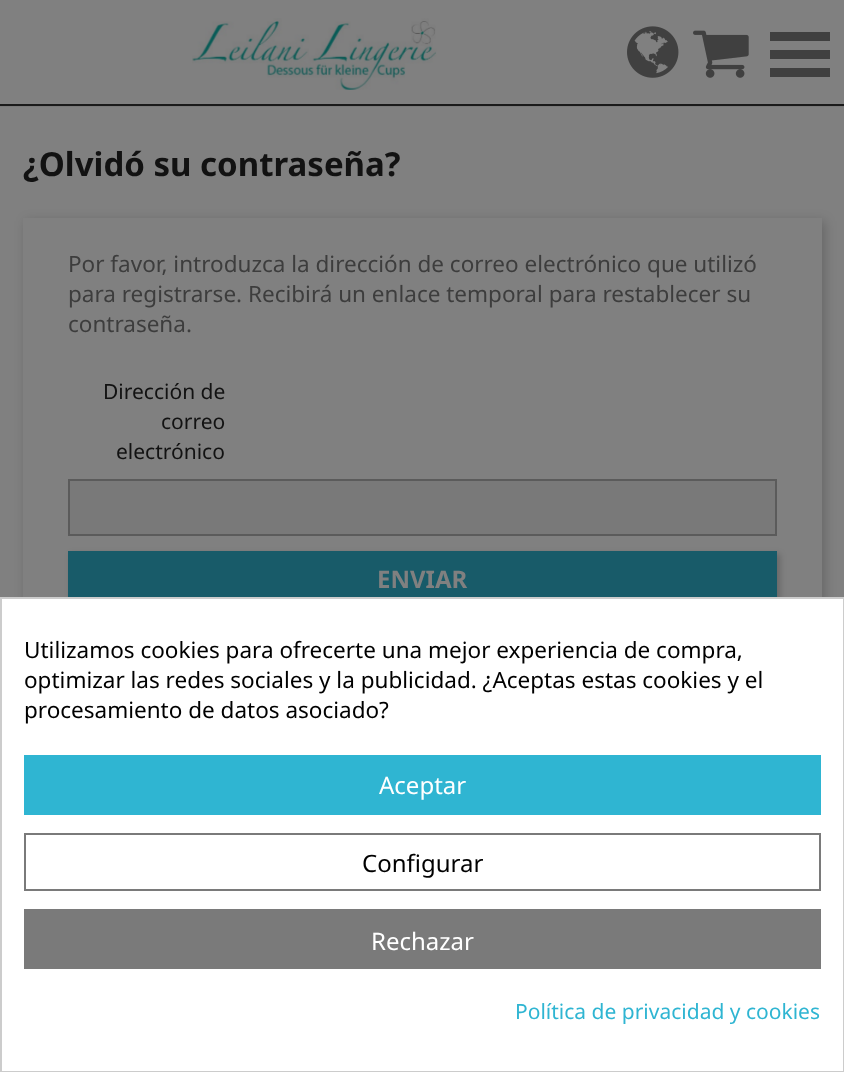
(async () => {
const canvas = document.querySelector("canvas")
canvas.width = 844
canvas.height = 1072
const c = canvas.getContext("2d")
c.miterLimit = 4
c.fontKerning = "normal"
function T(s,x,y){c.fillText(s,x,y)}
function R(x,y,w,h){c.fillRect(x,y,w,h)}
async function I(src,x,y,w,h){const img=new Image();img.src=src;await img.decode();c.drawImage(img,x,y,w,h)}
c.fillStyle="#808080"
R(0,0,844,1072)
c.fillStyle="#1a1a1a"
R(0,104,844,2)
await I("1.png",192,18,245,72)
await I("2.png",627,26,52,52)
await I("3.png",693,30,56,48)
c.fillStyle="#404040"
R(770,68,60,9)
R(770,50,60,9)
R(770,32,60,9)
c.fillStyle="#797979"
R(0,106,844,1)
c.font="bold 33px Noto Sans"
c.fillStyle="#121212"
T("¿Olvidó su contraseña?",23,176)
c.fillStyle="#00000033"
c.filter="blur(6px)"
c.beginPath()
c.rect(26,221,799,459)
c.fill()
c.filter="none"
c.fillStyle="#808080"
R(23,218,799,379)
c.font="22.5px Noto Sans"
c.fillStyle="#3d3d3d"
T("Por favor, introduzca la dirección de correo electrónico que utilizó",68,272)
T("para registrarse. Recibirá un enlace temporal para restablecer su",68,302)
T("contraseña.",68,332)
c.font="21px Noto Sans"
c.fillStyle="#121212"
T("Dirección de",103,399)
T("correo",161,429)
T("electrónico",116,459)
c.fillStyle="#797979"
c.beginPath()
c.rect(69,480,707,55)
c.fill()
c.strokeStyle="#5b5b5b"
c.lineWidth=2
c.stroke()
c.fillStyle="#00000033"
c.filter="blur(3px)"
c.beginPath()
c.rect(71,554,709,57)
c.fill()
c.filter="none"
c.fillStyle="#185b69"
R(68,551,709,46)
c.font="bold 24px Noto Sans"
c.fillStyle="#808080"
T("ENVIAR",377,588)
c.fillStyle="#fff"
c.beginPath()
c.rect(1,598,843,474)
c.fill()
c.strokeStyle="#ccc"
c.stroke()
c.font="22.5px Noto Sans"
c.fillStyle="#000"
T("Utilizamos cookies para ofrecerte una mejor experiencia de compra,",24,658)
T("optimizar las redes sociales y la publicidad. ¿Aceptas estas cookies y el",24,688)
T("procesamiento de datos asociado?",24,718)
c.fillStyle="#2fb5d2"
R(24,755,797,60)
c.font="24px Noto Sans"
c.fillStyle="#fff"
T("Aceptar",379,794)
c.strokeStyle="#7a7a7a"
c.strokeRect(25,834,795,56)
c.fillStyle="#000"
T("Configurar",362,872)
c.fillStyle="#7a7a7a"
R(24,909,797,60)
c.fillStyle="#fff"
T("Rechazar",371,950)
c.font="21px Noto Sans"
c.fillStyle="#2fb5d2"
T("Política de privacidad y cookies",515,1019)
})()
